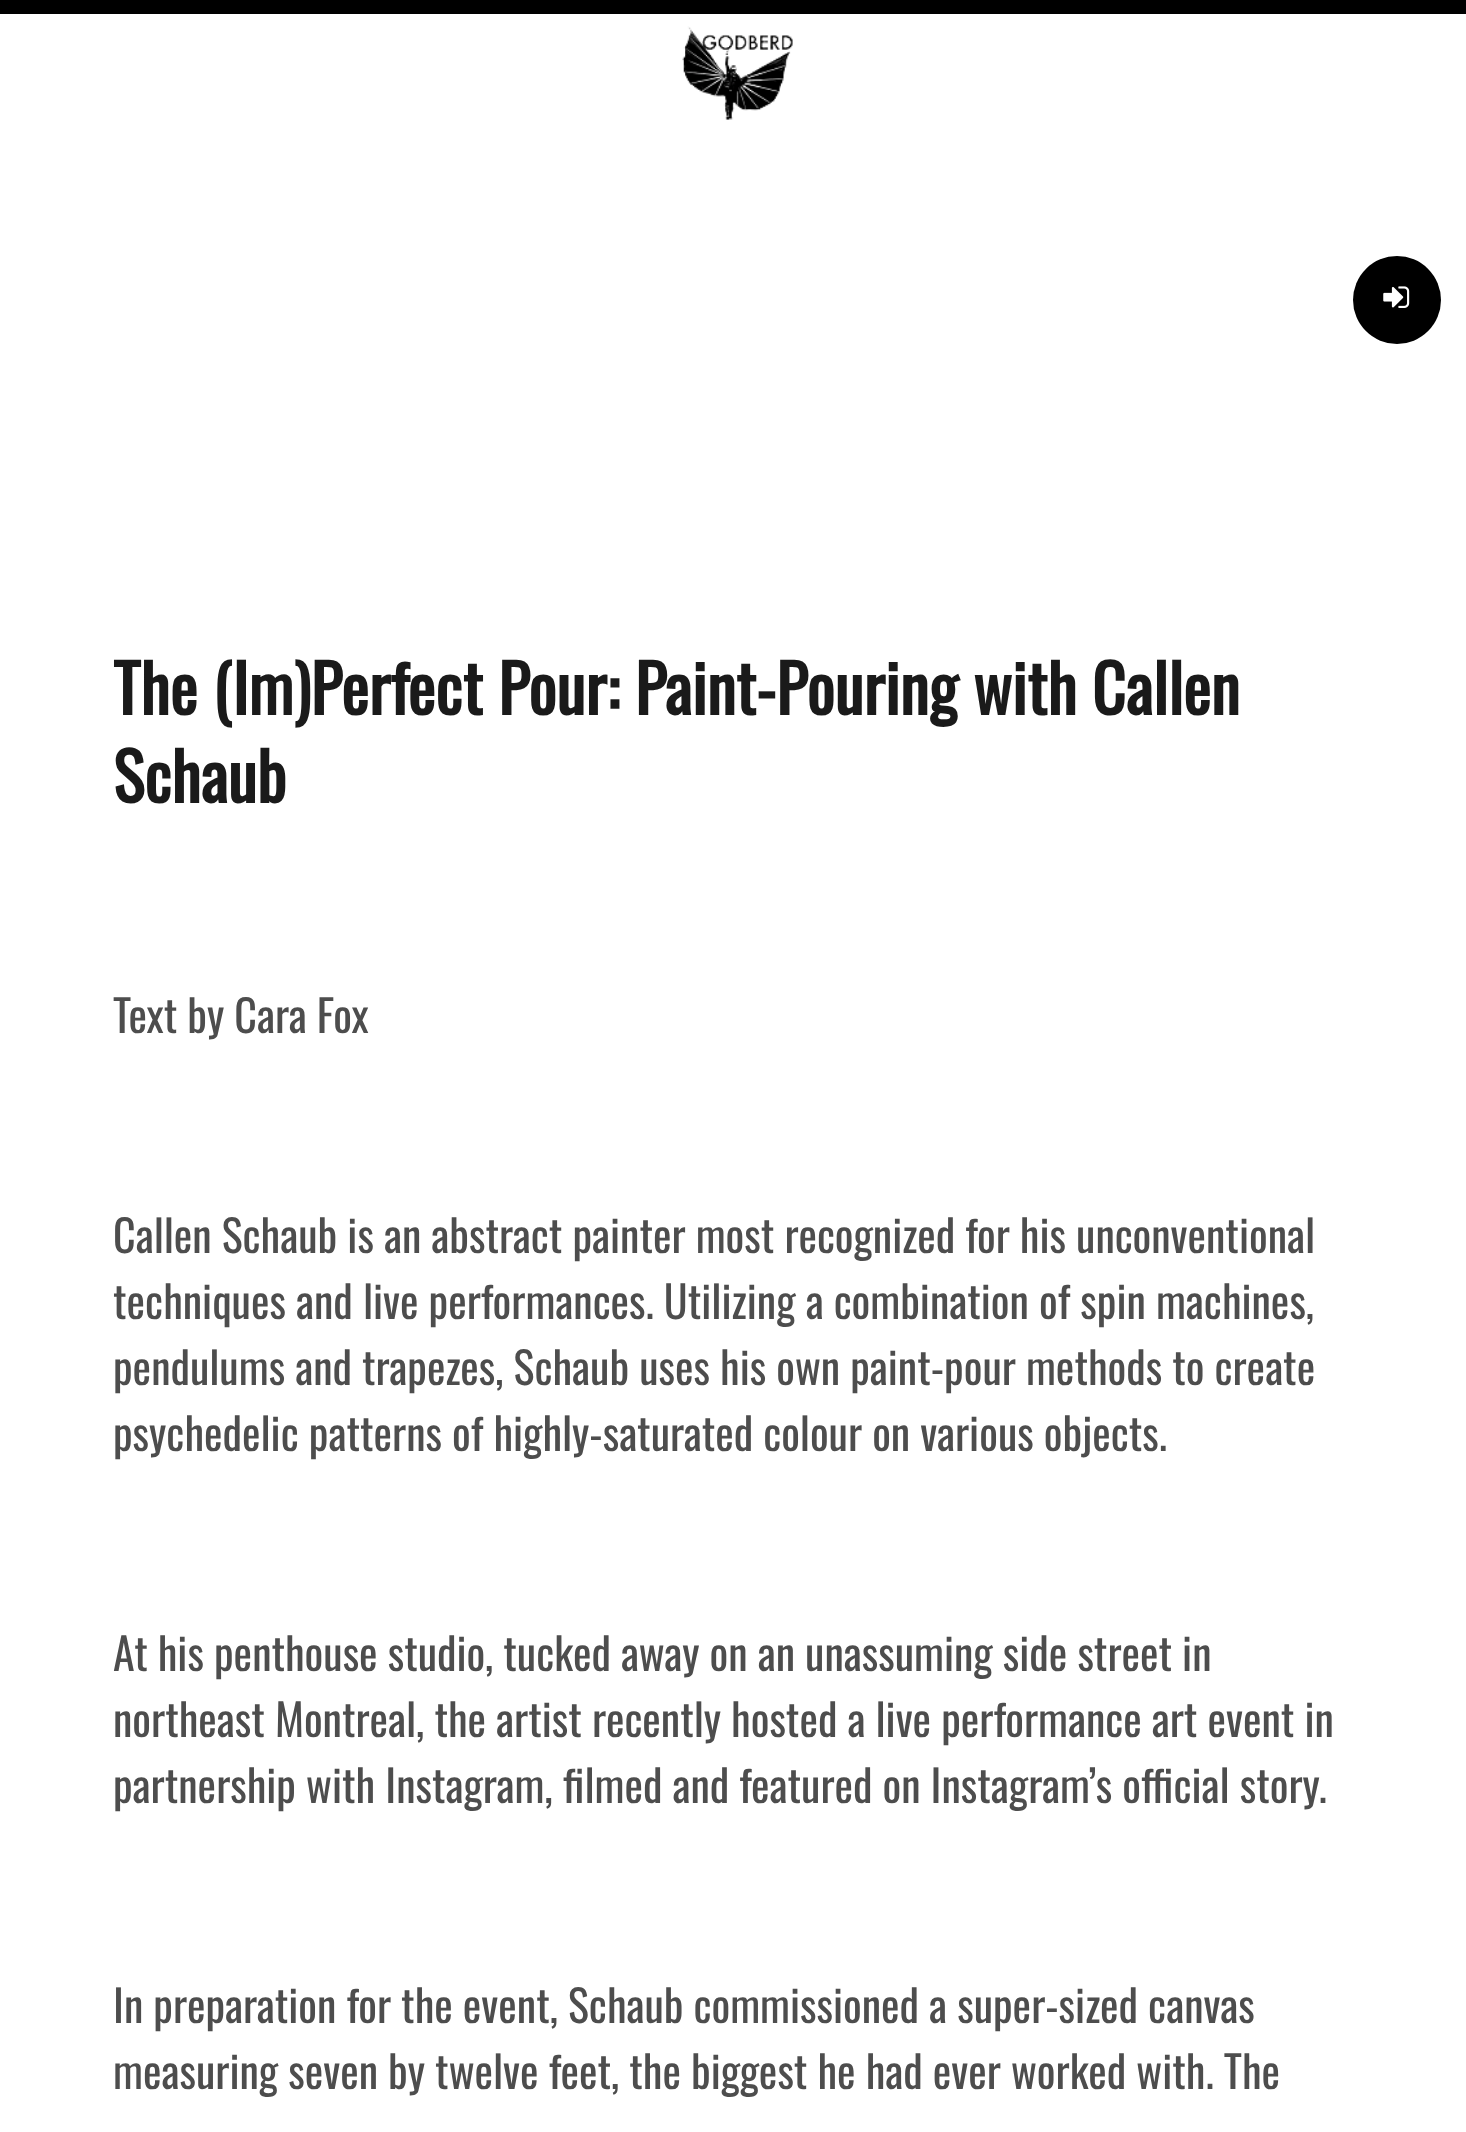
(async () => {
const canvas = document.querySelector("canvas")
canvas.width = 1466
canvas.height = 2132
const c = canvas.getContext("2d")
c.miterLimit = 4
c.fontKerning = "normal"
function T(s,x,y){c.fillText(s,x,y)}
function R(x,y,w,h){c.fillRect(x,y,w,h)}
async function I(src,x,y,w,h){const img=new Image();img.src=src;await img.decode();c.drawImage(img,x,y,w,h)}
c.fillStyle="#fff"
R(0,0,1466,2132)
c.fillStyle="#000"
R(0,0,1466,14)
await I("1.png",682,26,111,94)
c.beginPath()
c.arc(1397,300,44,0,7)
c.fill()
await I("2.png",1383,286,27,22)
c.font="bold 66px Oswald"
c.fillStyle="#1a1a1a"
T("The (Im)Perfect Pour: Paint-Pouring with Callen",113,715)
T("Schaub",113,803)
c.font="44px Oswald"
c.fillStyle="#4d4d4d"
T("Text by Cara Fox",113,1033)
T("Callen Schaub is an abstract painter most recognized for his unconventional",113,1253)
T("techniques and live performances. Utilizing a combination of spin machines,",113,1319)
T("pendulums and trapezes, Schaub uses his own paint-pour methods to create",113,1385)
T("psychedelic patterns of highly-saturated colour on various objects.",113,1451)
T("At his penthouse studio, tucked away on an unassuming side street in",113,1671)
T("northeast Montreal, the artist recently hosted a live performance art event in",113,1737)
T("partnership with Instagram, filmed and featured on Instagram’s official story.",113,1803)
T("In preparation for the event, Schaub commissioned a super-sized canvas",113,2023)
T("measuring seven by twelve feet, the biggest he had ever worked with. The",113,2089)
})()
